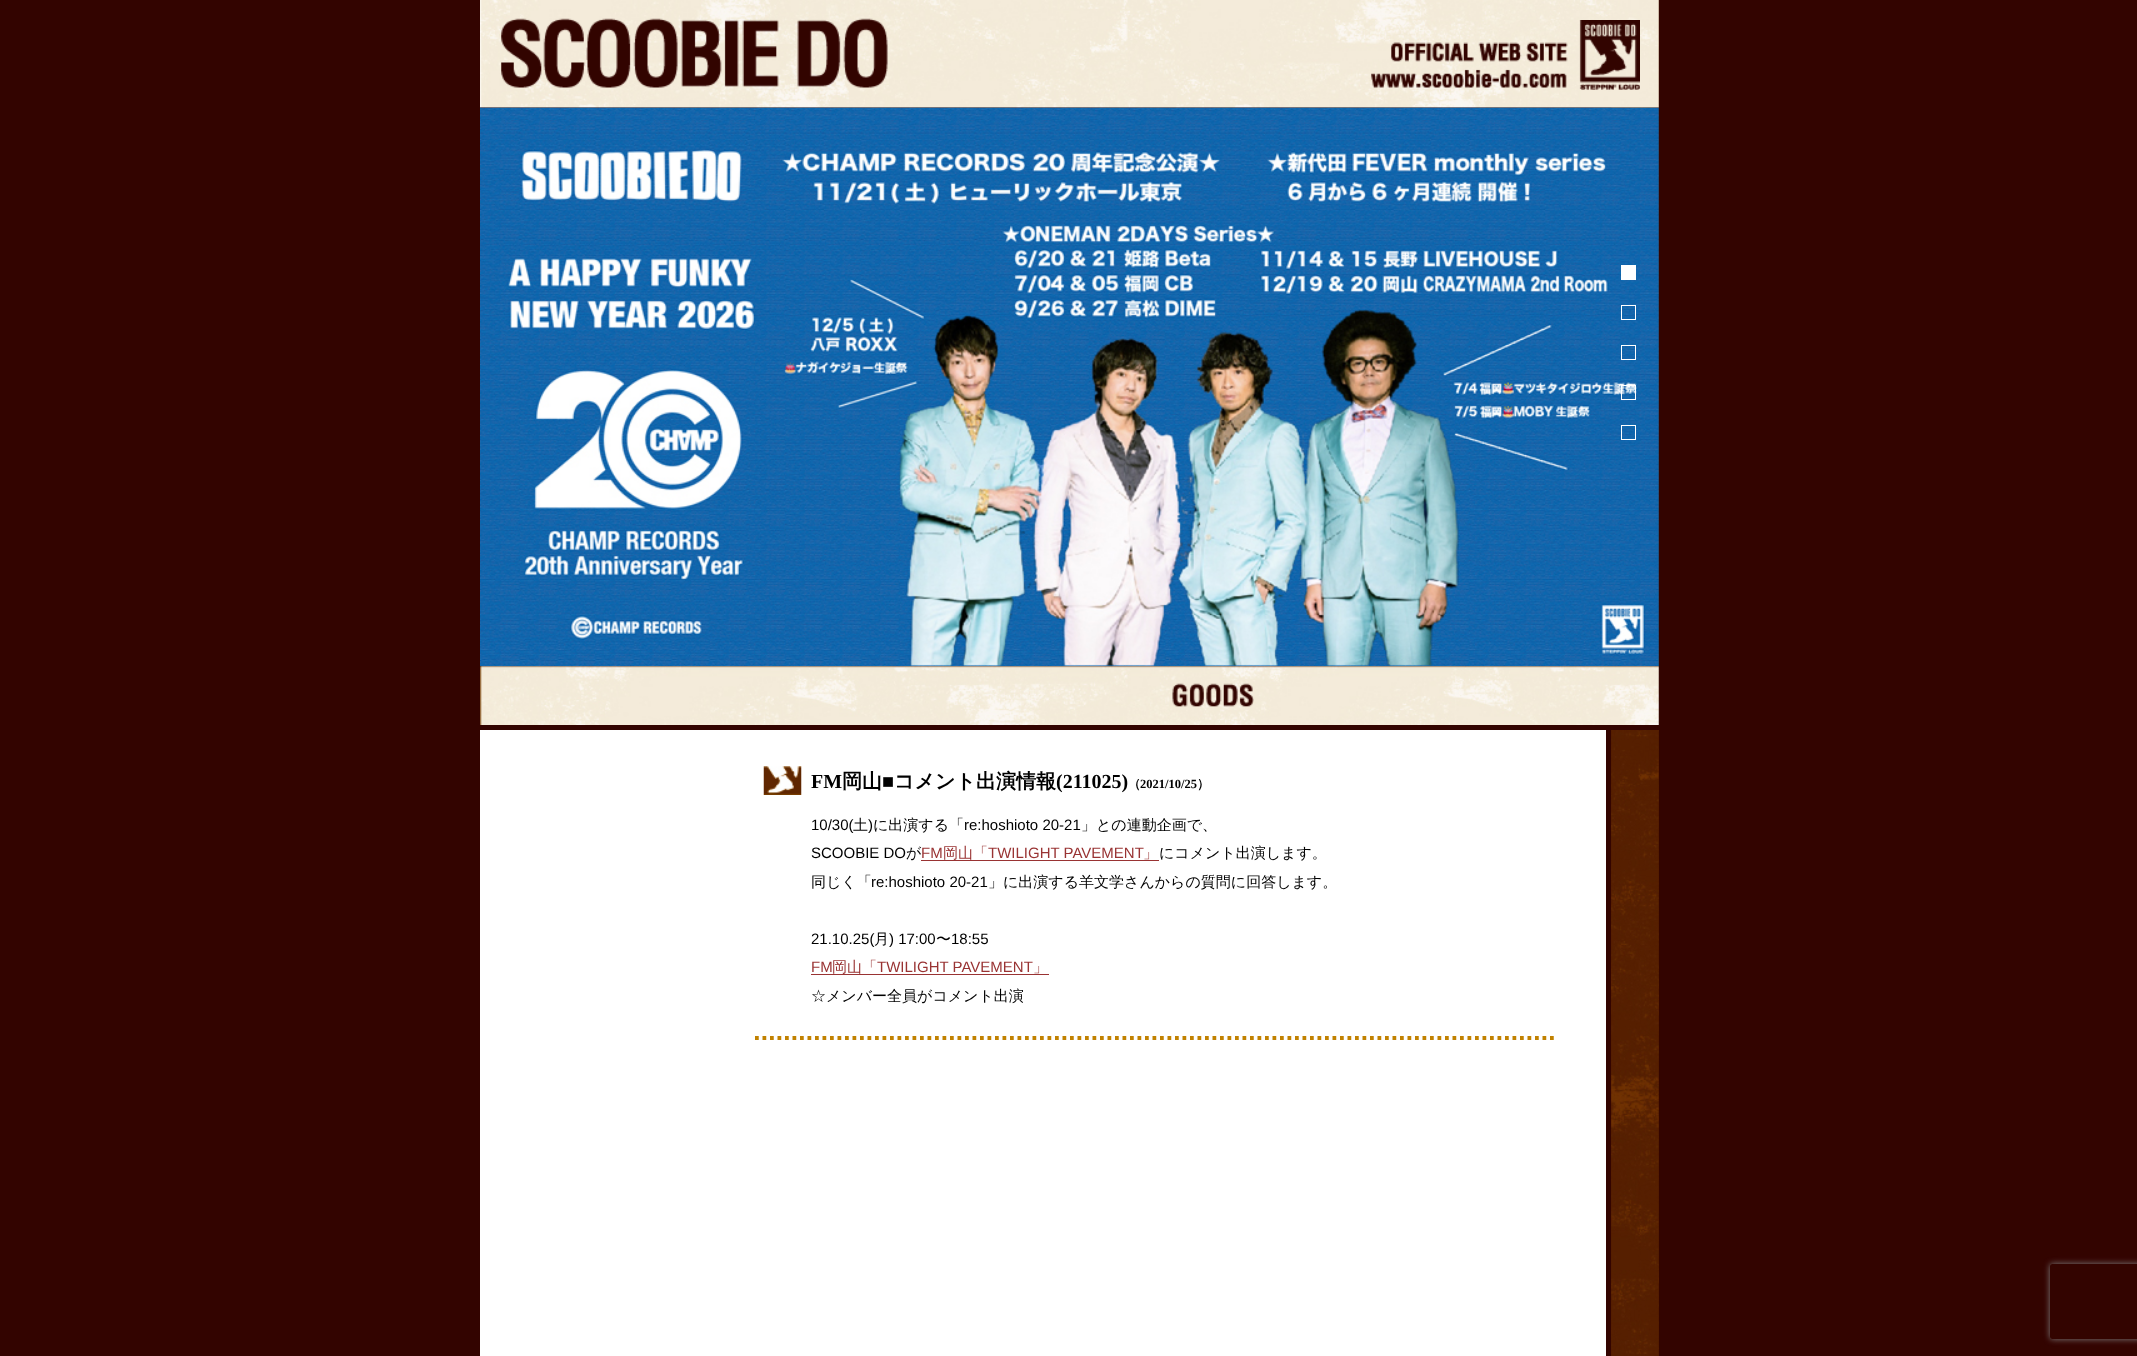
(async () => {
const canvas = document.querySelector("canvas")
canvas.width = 2137
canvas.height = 1356
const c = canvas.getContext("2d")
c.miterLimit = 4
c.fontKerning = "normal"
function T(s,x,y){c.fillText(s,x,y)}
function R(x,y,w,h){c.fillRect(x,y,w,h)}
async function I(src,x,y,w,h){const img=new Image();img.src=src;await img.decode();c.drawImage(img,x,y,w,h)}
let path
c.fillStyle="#330400"
R(0,0,2137,1356)
await I("1.png",1611,0,48,1356)
await I("2.png",480,0,1179,108)
await I("3.png",501,18,387,70)
await I("4.png",1371,20,269,70)
R(1611,666,48,64)
await I("6.png",480,666,1179,59)
await I("5.png",480,107,1179,560)
c.fillStyle="#fff"
R(1621,265,15,15)
c.strokeStyle="#fff"
c.strokeRect(1621.5,305.5,14,14)
c.strokeRect(1621.5,345.5,14,14)
c.strokeRect(1621.5,385.5,14,14)
c.strokeRect(1621.5,425.5,14,14)
await I("7.png",1172,683,82,24)
R(480,730,1126,626)
path = new Path2D("M755 1038h800")
c.strokeStyle="#c18100"
c.lineWidth=3.8
c.setLineDash([3.75,3.75])
c.stroke(path)
await I("8.png",763,766,39,29)
c.font="bold 20px Liberation Serif"
c.fillStyle="#000"
T("FM",811,788)
c.font="bold 20px WenQuanYi Zen Hei"
T("岡山",842,788)
c.font="bold 20px Liberation Serif"
T("■",882,788)
c.font="bold 20px WenQuanYi Zen Hei"
T("コメント出演情報",894,788)
c.font="bold 20px Liberation Serif"
T("(211025)",1056,788)
c.font="bold 12.5px WenQuanYi Zen Hei"
T("（",1128,788)
c.font="bold 12.5px Liberation Serif"
T("2021/10/25",1140,788)
c.font="bold 12.5px WenQuanYi Zen Hei"
T("）",1197,788)
c.font="15px Liberation Sans"
T("10/30(",811,830)
c.font="500 15px WenQuanYi Zen Hei"
T("土",853,830)
c.font="15px Liberation Sans"
T(")",868,830)
c.font="500 15px WenQuanYi Zen Hei"
T("に出演する「",873,830)
c.font="15px Liberation Sans"
T("re:hoshioto 20-21",964,830)
c.font="500 15px WenQuanYi Zen Hei"
T("」との連動企画で、",1081,830)
c.font="15px Liberation Sans"
T("SCOOBIE DO",811,858)
c.font="500 15px WenQuanYi Zen Hei"
T("が",906,858)
c.font="15px Liberation Sans"
c.fillStyle="#933"
T("FM",921,858)
c.font="500 15px WenQuanYi Zen Hei"
T("岡山「",943,858)
c.font="15px Liberation Sans"
T("TWILIGHT PAVEMENT",988,858)
c.font="500 15px WenQuanYi Zen Hei"
T("」",1143,858)
R(921,860,238,1)
c.fillStyle="#000"
T("にコメント出演します。",1159,858)
T("同じく「",811,887)
c.font="15px Liberation Sans"
T("re:hoshioto 20-21",871,887)
c.font="500 15px WenQuanYi Zen Hei"
T("」に出演する羊文学さんからの質問に回答します。",988,887)
c.font="15px Liberation Sans"
T("21.10.25(",811,944)
c.font="500 15px WenQuanYi Zen Hei"
T("月",874,944)
c.font="15px Liberation Sans"
T(") 17:00",889,944)
c.font="500 15px WenQuanYi Zen Hei"
T("〜",936,944)
c.font="15px Liberation Sans"
T("18:55",951,944)
c.fillStyle="#933"
T("FM",811,972)
c.font="500 15px WenQuanYi Zen Hei"
T("岡山「",832,972)
c.font="15px Liberation Sans"
T("TWILIGHT PAVEMENT",877,972)
c.font="500 15px WenQuanYi Zen Hei"
T("」",1033,972)
R(811,974,238,1)
c.fillStyle="#000"
T("☆メンバー全員がコメント出演",811,1001)
await I("9.png",1611,730,48,626)
c.save()
path = new Path2D("M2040 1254h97v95h-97zm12.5 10h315c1.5 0 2.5 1 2.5 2.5v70c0 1.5-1 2.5-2.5 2.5h-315c-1.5 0-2.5-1-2.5-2.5v-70c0-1.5 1-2.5 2.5-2.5z")
c.clip(path,"evenodd")
c.fillStyle="#808080"
c.filter="blur(3px)"
c.beginPath()
c.roundRect(2050,1264,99,75,2.5)
c.fill()
c.filter="none"
c.restore()
})()
